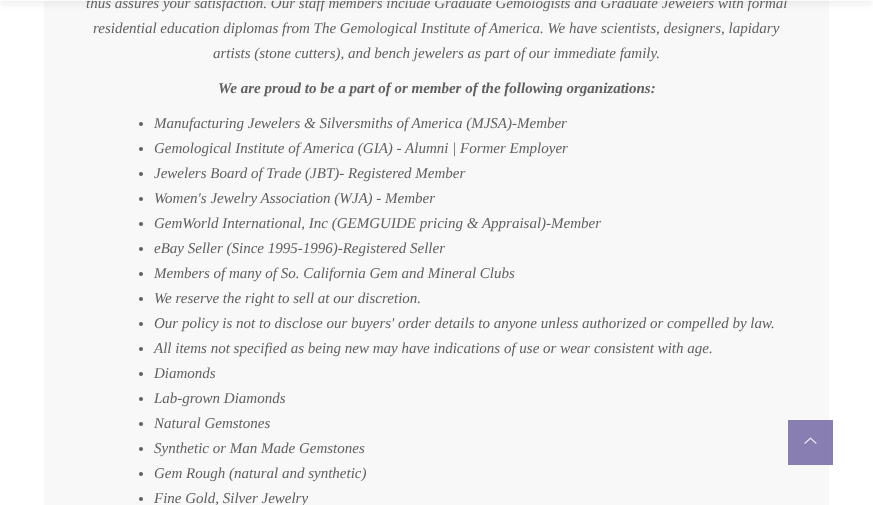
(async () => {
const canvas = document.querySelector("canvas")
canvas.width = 873
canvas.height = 505
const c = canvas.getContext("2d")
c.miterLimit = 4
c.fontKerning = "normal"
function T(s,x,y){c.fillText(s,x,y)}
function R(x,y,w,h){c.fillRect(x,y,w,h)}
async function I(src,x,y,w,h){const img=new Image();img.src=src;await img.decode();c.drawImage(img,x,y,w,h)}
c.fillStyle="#fff"
R(0,0,873,505)
c.fillStyle="#8a7fb3"
R(829,420,4,45)
c.fillStyle="#f8f8f8"
R(44,0,785,505)
c.fillStyle="#96969621"
c.filter="blur(3px)"
c.beginPath()
c.rect(0,-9,873,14)
c.fill()
c.filter="none"
c.font="italic 15px Liberation Serif"
c.fillStyle="#606060"
T("thus assures your satisfaction. Our staff members include Graduate Gemologists and Graduate Jewelers with formal",86,8)
c.fillStyle="#ffffffcc"
R(0,0,873,1)
c.fillStyle="#897eb1"
R(788,420,41,45)
c.fillStyle="#606060"
T("residential education diplomas from The Gemological Institute of America. We have scientists, designers, lapidary",93,33)
T("artists (stone cutters), and bench jewelers as part of our immediate family.",213,58)
c.font="italic bold 15px Liberation Serif"
T("We are proud to be a part of or member of the following organizations:",218,93)
c.beginPath()
c.arc(141,124,2,0,7)
c.fill()
c.font="italic 15px Liberation Serif"
T("Manufacturing Jewelers & Silversmiths of America (MJSA)-Member",154,128)
c.beginPath()
c.arc(141,149,2,0,7)
c.fill()
T("Gemological Institute of America (GIA) - Alumni | Former Employer",154,153)
c.beginPath()
c.arc(141,174,2,0,7)
c.fill()
T("Jewelers Board of Trade (JBT)- Registered Member",154,178)
c.beginPath()
c.arc(141,199,2,0,7)
c.fill()
T("Women's Jewelry Association (WJA) - Member",154,203)
c.beginPath()
c.arc(141,224,2,0,7)
c.fill()
T("GemWorld International, Inc (GEMGUIDE pricing & Appraisal)-Member",154,228)
c.beginPath()
c.arc(141,249,2,0,7)
c.fill()
T("eBay Seller (Since 1995-1996)-Registered Seller",154,253)
c.beginPath()
c.arc(141,274,2,0,7)
c.fill()
T("Members of many of So. California Gem and Mineral Clubs",154,278)
c.beginPath()
c.arc(141,299,2,0,7)
c.fill()
T("We reserve the right to sell at our discretion.",154,303)
c.beginPath()
c.arc(141,324,2,0,7)
c.fill()
T("Our policy is not to disclose our buyers' order details to anyone unless authorized or compelled by law.",154,328)
c.beginPath()
c.arc(141,349,2,0,7)
c.fill()
T("All items not specified as being new may have indications of use or wear consistent with age.",154,353)
c.beginPath()
c.arc(141,374,2,0,7)
c.fill()
T("Diamonds",154,378)
c.beginPath()
c.arc(141,399,2,0,7)
c.fill()
T("Lab-grown Diamonds",154,403)
c.beginPath()
c.arc(141,424,2,0,7)
c.fill()
T("Natural Gemstones",154,428)
c.beginPath()
c.arc(141,449,2,0,7)
c.fill()
T("Synthetic or Man Made Gemstones",154,453)
c.beginPath()
c.arc(141,474,2,0,7)
c.fill()
T("Gem Rough (natural and synthetic)",154,478)
c.beginPath()
c.arc(141,499,2,0,7)
c.fill()
T("Fine Gold, Silver Jewelry",154,503)
await I("1.png",804,437,13,7)
})()
